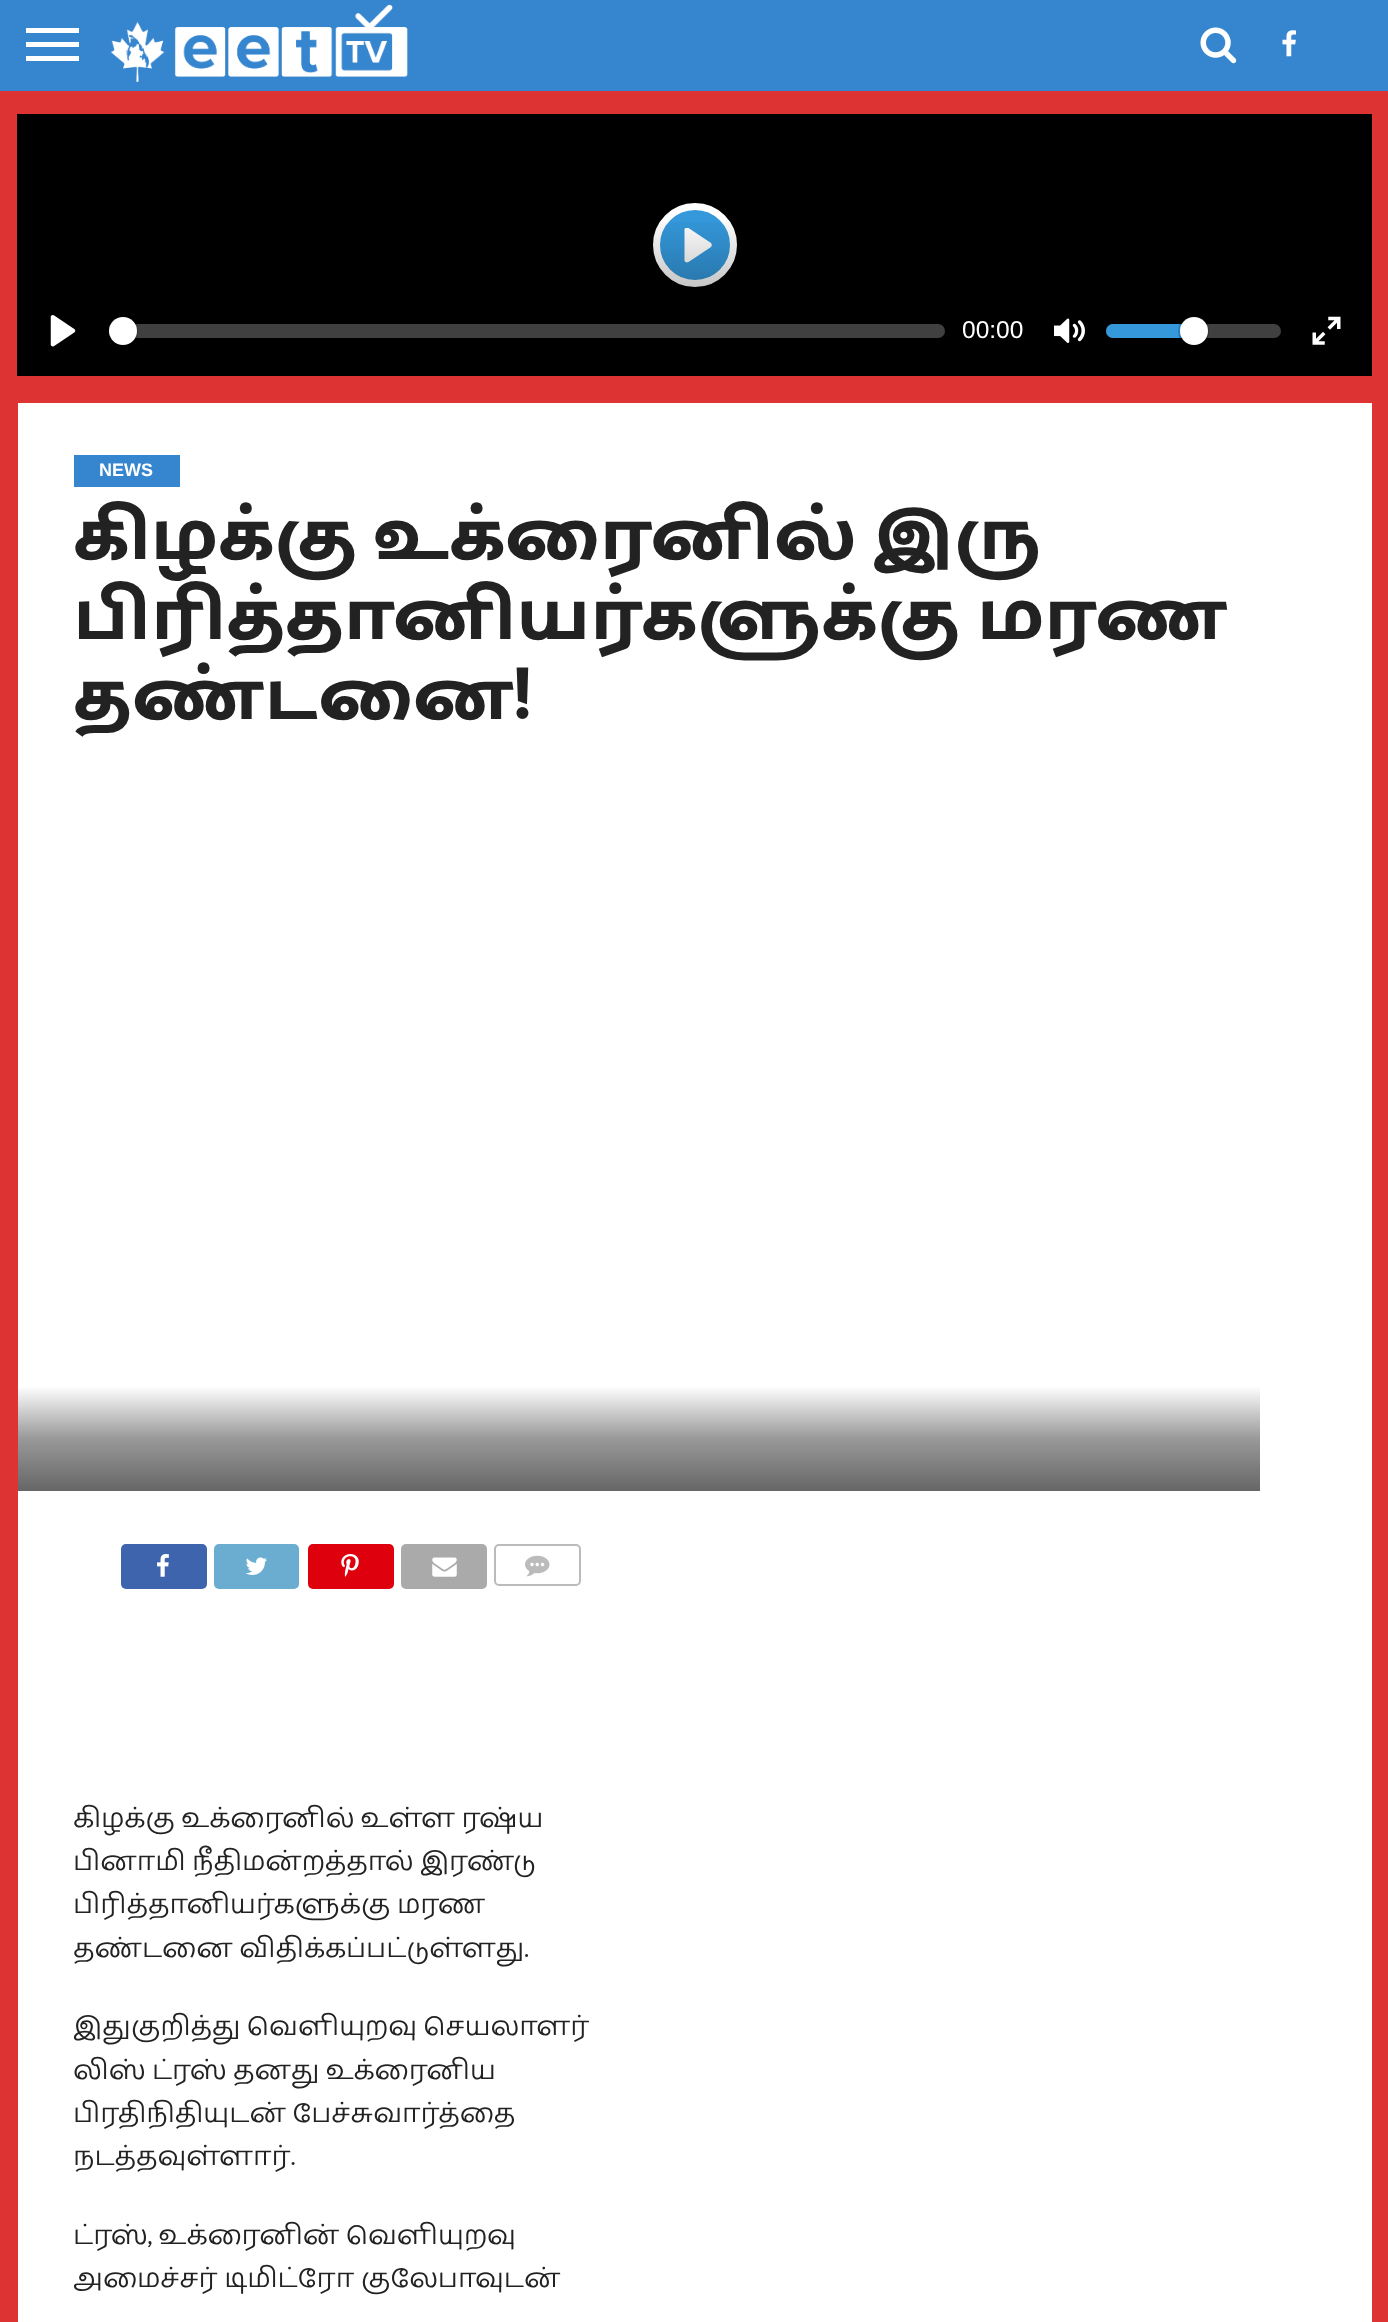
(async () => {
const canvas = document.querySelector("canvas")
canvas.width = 1388
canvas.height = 2322
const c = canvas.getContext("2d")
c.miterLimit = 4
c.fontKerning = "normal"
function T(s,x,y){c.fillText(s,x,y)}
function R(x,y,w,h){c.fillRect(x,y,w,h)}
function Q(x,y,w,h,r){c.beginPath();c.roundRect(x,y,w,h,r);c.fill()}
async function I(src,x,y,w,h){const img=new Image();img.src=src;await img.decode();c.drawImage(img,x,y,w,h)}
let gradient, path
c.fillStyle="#d33"
R(0,0,1388,2322)
c.fillStyle="#3585cf"
R(0,0,1388,91)
c.fillStyle="#fff"
R(26,28,53,5)
R(26,42,53,5)
R(26,56,53,5)
await I("1.png",110,4,298,78)
await I("2.png",1200,27,37,37)
await I("3.png",1282,30,14,27)
c.fillStyle="#000"
R(17,114,1355,262)
c.fillStyle="#3498db"
c.beginPath()
c.arc(695,245,38.5,0,7)
c.fill()
c.strokeStyle="#fff"
c.lineWidth=7
c.stroke()
c.save()
c.beginPath()
c.rect(681,228,35,35)
c.clip()
c.fillStyle="#fff"
path = new Path2D("M711 243l-22.5-15c-2-1-4 0-4 1.5v31c0 1.5 2 2.5 4 1.5l22.5-15c1-1 1-3 0-4z")
c.fill(path)
c.restore()
gradient = c.createLinearGradient(695,215,695,376)
gradient.addColorStop(0,"#00000000")
gradient.addColorStop(1,"#00000080")
c.fillStyle = gradient
R(653,222,84,65)
await I("4.png",50,315,26,32)
c.fillStyle="#404040"
Q(109,324,836,14,7)
c.beginPath()
c.roundRect(108,316,29,30,14.5)
c.strokeStyle="#00000026"
c.lineWidth=2
c.stroke()
c.fillStyle="#fff"
c.beginPath()
c.arc(123,331,14,0,7)
c.fill()
c.font="24.5px Liberation Sans"
T("00:00",962,338)
await I("5.png",1054,318,31,25)
c.fillStyle="#404040"
Q(1106,324,175,14,7)
c.fillStyle="#3498db"
c.beginPath()
c.roundRect(1106,324,88,14,[7,0,0,7])
c.fill()
c.beginPath()
c.roundRect(1179,316,29,30,14.5)
c.stroke()
c.fillStyle="#00000026"
c.filter="blur(1px)"
c.beginPath()
c.roundRect(1180,319,28,28,14)
c.fill()
c.filter="none"
c.fillStyle="#fff"
c.beginPath()
c.arc(1194,331,14,0,7)
c.fill()
await I("6.png",1312,316,29,29)
R(18,403,1354,1919)
c.fillStyle="#3585cf"
R(74,455,106,32)
c.font="bold 18px Liberation Sans"
c.fillStyle="#fff"
T("NEWS",99,476)
c.font="800 72.75px Catamaran"
c.fillStyle="#222"
T("கிழக்கு உக்ரைனில் இரு",73,559)
T("பிரித்தானியர்களுக்கு மரண",73,639)
T("தண்டனை!",73,719)
gradient = c.createLinearGradient(639,1386,639,1491)
gradient.addColorStop(0,"#fff")
gradient.addColorStop(.5,"#999")
gradient.addColorStop(1,"#666")
c.fillStyle = gradient
R(18,1387,1242,104)
c.fillStyle="#3e64ad"
Q(121,1544,86,45,5)
await I("7.png",157,1554,12,23)
c.fillStyle="#6aadd1"
Q(214,1544,85,45,5)
await I("8.png",245,1557,22,18)
c.fillStyle="#de010d"
Q(308,1544,86,45,5)
await I("9.png",341,1554,18,23)
c.fillStyle="#aaa"
Q(401,1544,86,45,5)
await I("10.png",432,1557,25,20)
c.beginPath()
c.roundRect(495,1545,85,40,4)
c.strokeStyle="#bbb"
c.stroke()
await I("11.png",525,1555,25,22)
c.font="28px Catamaran"
c.fillStyle="#222"
T("கிழக்கு உக்ரைனில் உள்ள ரஷ்ய",73,1827)
T("பினாமி நீதிமன்றத்தால் இரண்டு",73,1870)
T("பிரித்தானியர்களுக்கு மரண",73,1913)
T("தண்டனை விதிக்கப்பட்டுள்ளது.",73,1957)
T("இதுகுறித்து வெளியுறவு செயலாளர்",73,2035)
T("லிஸ் ட்ரஸ் தனது உக்ரைனிய",73,2079)
T("பிரதிநிதியுடன் பேச்சுவார்த்தை",73,2122)
T("நடத்தவுள்ளார்.",73,2165)
T("ட்ரஸ், உக்ரைனின் வெளியுறவு",73,2244)
T("அமைச்சர் டிமிட்ரோ குலேபாவுடன்",73,2287)
})()
